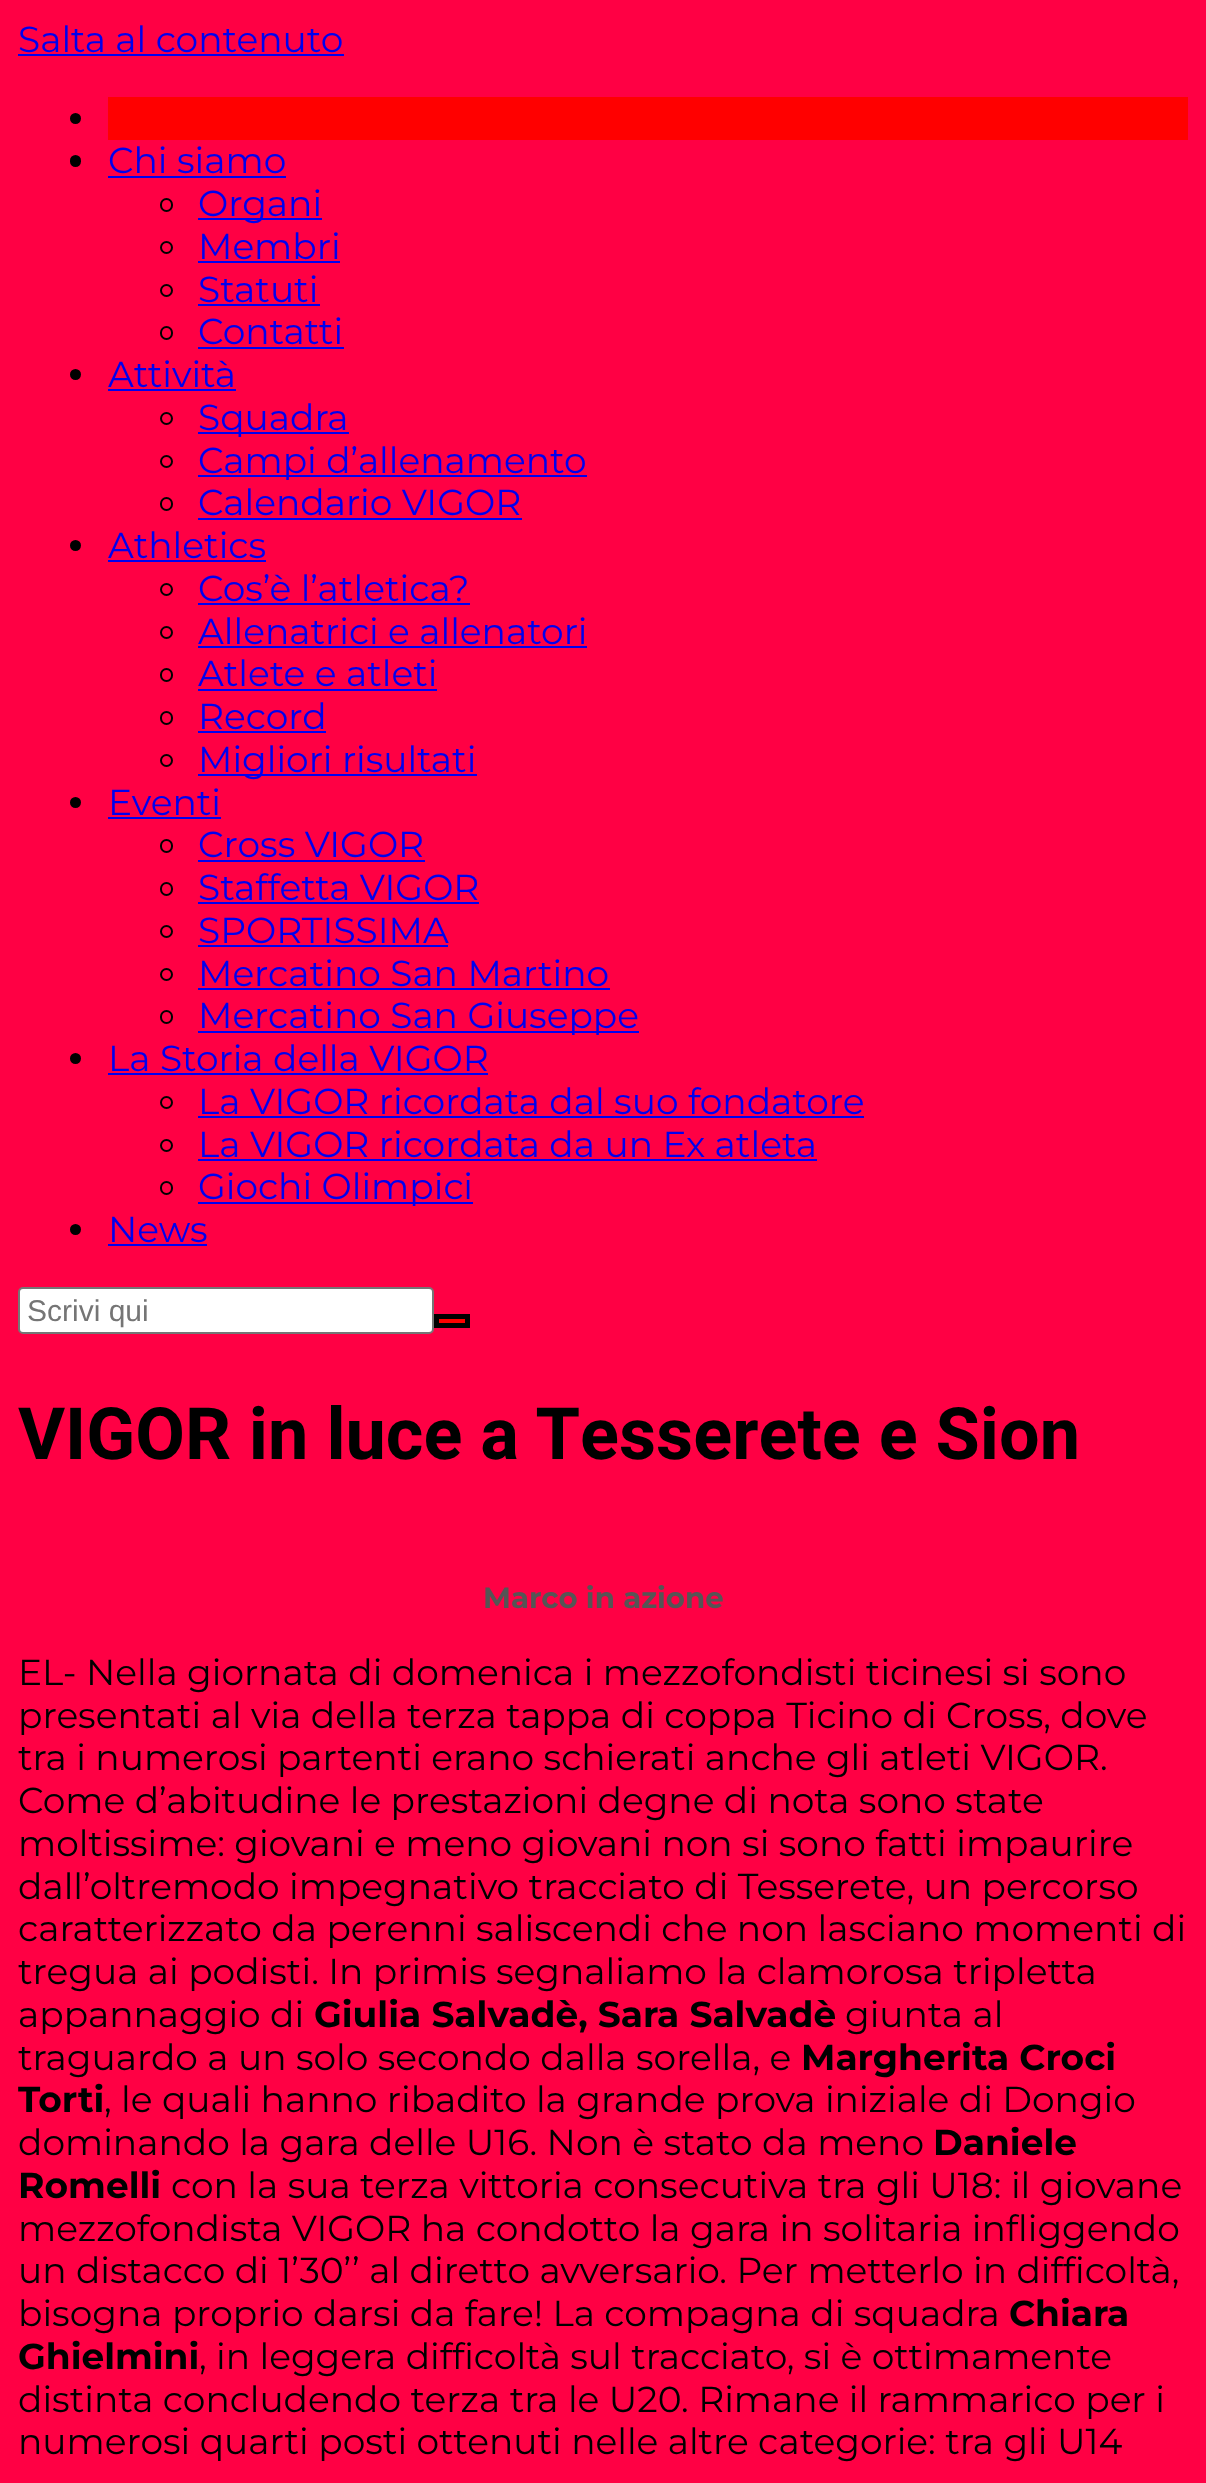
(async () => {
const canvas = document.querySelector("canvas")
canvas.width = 1206
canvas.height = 2483
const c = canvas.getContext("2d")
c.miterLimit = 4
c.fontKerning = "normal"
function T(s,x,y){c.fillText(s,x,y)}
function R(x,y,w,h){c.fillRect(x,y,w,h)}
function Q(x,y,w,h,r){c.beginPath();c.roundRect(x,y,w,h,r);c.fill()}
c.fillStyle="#f04"
R(0,0,1206,2483)
c.font="36px Montserrat"
c.fillStyle="#00e"
T("Salta al contenuto",18,52)
R(18,54,326,2)
c.fillStyle="#f00"
R(108,97,1080,43)
c.fillStyle="#000"
c.beginPath()
c.arc(75.5,118.5,5.5,0,7)
c.fill()
Q(70,155,11,12,5.5)
c.fillStyle="#00e"
T("Chi siamo",108,173)
R(108,176,178,2)
c.beginPath()
c.roundRect(161,199,11,12,5.5)
c.strokeStyle="#000"
c.lineWidth=2
c.stroke()
R(198,218,124,2)
T("Organi",198,216)
c.beginPath()
c.arc(166.5,247.5,5.5,0,7)
c.stroke()
T("Membri",198,259)
R(198,261,142,2)
c.beginPath()
c.arc(166.5,290.5,5.5,0,7)
c.stroke()
T("Statuti",198,302)
R(198,304,122,2)
c.beginPath()
c.roundRect(161,327,11,12,5.5)
c.stroke()
T("Contatti",198,344)
R(198,347,146,2)
c.fillStyle="#000"
c.beginPath()
c.arc(75.5,374.5,5.5,0,7)
c.fill()
c.fillStyle="#00e"
T("Attività",108,387)
R(108,389,128,2)
c.beginPath()
c.arc(166.5,418.5,5.5,0,7)
c.stroke()
R(198,432,151,2)
T("Squadra",198,430)
c.beginPath()
c.arc(166.5,461.5,5.5,0,7)
c.stroke()
R(198,475,389,2)
T("Campi d’allenamento",198,473)
c.beginPath()
c.roundRect(161,498,11,12,5.5)
c.stroke()
T("Calendario VIGOR",198,515)
R(198,518,324,2)
c.fillStyle="#000"
c.beginPath()
c.arc(75.5,545.5,5.5,0,7)
c.fill()
c.fillStyle="#00e"
T("Athletics",108,558)
R(108,560,158,2)
c.beginPath()
c.arc(166.5,589.5,5.5,0,7)
c.stroke()
T("Cos’è l’atletica?",198,601)
R(198,603,272,2)
c.beginPath()
c.arc(166.5,632.5,5.5,0,7)
c.stroke()
T("Allenatrici e allenatori",198,644)
R(198,646,389,2)
c.beginPath()
c.roundRect(161,669,11,12,5.5)
c.stroke()
T("Atlete e atleti",198,686)
R(198,689,239,2)
c.beginPath()
c.roundRect(161,712,11,12,5.5)
c.stroke()
T("Record",198,729)
R(198,731,128,2)
c.beginPath()
c.arc(166.5,760.5,5.5,0,7)
c.stroke()
R(198,774,279,2)
T("Migliori risultati",198,772)
c.fillStyle="#000"
c.beginPath()
c.arc(75.5,802.5,5.5,0,7)
c.fill()
c.fillStyle="#00e"
T("Eventi",108,815)
R(108,817,113,2)
c.beginPath()
c.roundRect(161,840,11,12,5.5)
c.stroke()
T("Cross VIGOR",198,857)
R(198,860,227,2)
c.beginPath()
c.roundRect(161,883,11,12,5.5)
c.stroke()
T("Staffetta VIGOR",198,900)
R(198,902,281,2)
c.beginPath()
c.arc(166.5,931.5,5.5,0,7)
c.stroke()
T("SPORTISSIMA",198,943)
R(198,945,250,2)
c.beginPath()
c.arc(166.5,974.5,5.5,0,7)
c.stroke()
T("Mercatino San Martino",198,986)
R(198,988,412,2)
c.beginPath()
c.roundRect(161,1011,11,12,5.5)
c.stroke()
R(198,1031,441,2)
T("Mercatino San Giuseppe",198,1028)
c.fillStyle="#000"
c.beginPath()
c.arc(75.5,1058.5,5.5,0,7)
c.fill()
c.fillStyle="#00e"
T("La Storia della VIGOR",108,1071)
R(108,1073,380,2)
c.beginPath()
c.arc(166.5,1102.5,5.5,0,7)
c.stroke()
T("La VIGOR ricordata dal suo fondatore",198,1114)
R(198,1116,666,2)
c.beginPath()
c.arc(166.5,1145.5,5.5,0,7)
c.stroke()
T("La VIGOR ricordata da un Ex atleta",198,1157)
R(198,1159,619,2)
c.beginPath()
c.roundRect(161,1182,11,12,5.5)
c.stroke()
R(198,1202,275,2)
T("Giochi Olimpici",198,1199)
c.fillStyle="#000"
c.beginPath()
c.arc(75.5,1229.5,5.5,0,7)
c.fill()
c.fillStyle="#00e"
T("News",108,1242)
R(108,1244,99,2)
c.fillStyle="#fff"
c.beginPath()
c.roundRect(19,1288,414,45,4)
c.fill()
c.strokeStyle="#767676"
c.stroke()
c.font="30px Liberation Sans"
c.fillStyle="#757575"
T("Scrivi qui",27,1321)
c.fillStyle="#f00"
c.beginPath()
c.rect(436.5,1316.5,31,9)
c.fill()
c.strokeStyle="#000"
c.lineWidth=5
c.stroke()
c.font="bold 72px Heebo"
c.fillStyle="#000"
T("VIGOR in luce a Tesserete e Sion",18,1459)
c.font="bold 29.25px Montserrat"
c.fillStyle="#555"
T("Marco in azione",483,1608)
c.font="36px Montserrat"
c.fillStyle="#000"
T("EL- Nella giornata di domenica i mezzofondisti ticinesi si sono",18,1685)
T("presentati al via della terza tappa di coppa Ticino di Cross, dove",18,1728)
T("tra i numerosi partenti erano schierati anche gli atleti VIGOR.",18,1770)
T("Come d’abitudine le prestazioni degne di nota sono state",18,1813)
T("moltissime: giovani e meno giovani non si sono fatti impaurire",18,1856)
T("dall’oltremodo impegnativo tracciato di Tesserete, un percorso",18,1899)
T("caratterizzato da perenni saliscendi che non lasciano momenti di",18,1941)
T("tregua ai podisti. In primis segnaliamo la clamorosa tripletta",18,1984)
T("appannaggio di",18,2027)
c.font="bold 36px Montserrat"
T("Giulia Salvadè, Sara Salvadè",314,2027)
c.font="36px Montserrat"
T("giunta al",845,2027)
T("traguardo a un solo secondo dalla sorella, e",18,2070)
c.font="bold 36px Montserrat"
T("Margherita Croci",801,2070)
T("Torti",18,2112)
c.font="36px Montserrat"
T(", le quali hanno ribadito la grande prova iniziale di Dongio",104,2112)
T("dominando la gara delle U16. Non è stato da meno",18,2155)
c.font="bold 36px Montserrat"
T("Daniele",933,2155)
T("Romelli",18,2198)
c.font="36px Montserrat"
T("con la sua terza vittoria consecutiva tra gli U18: il giovane",171,2198)
T("mezzofondista VIGOR ha condotto la gara in solitaria infliggendo",18,2241)
T("un distacco di 1’30’’ al diretto avversario. Per metterlo in difficoltà,",18,2283)
T("bisogna proprio darsi da fare! La compagna di squadra",18,2326)
c.font="bold 36px Montserrat"
T("Chiara",1009,2326)
T("Ghielmini",18,2369)
c.font="36px Montserrat"
T(", in leggera difficoltà sul tracciato, si è ottimamente",199,2369)
T("distinta concludendo terza tra le U20. Rimane il rammarico per i",18,2412)
T("numerosi quarti posti ottenuti nelle altre categorie: tra gli U14",18,2454)
})()
